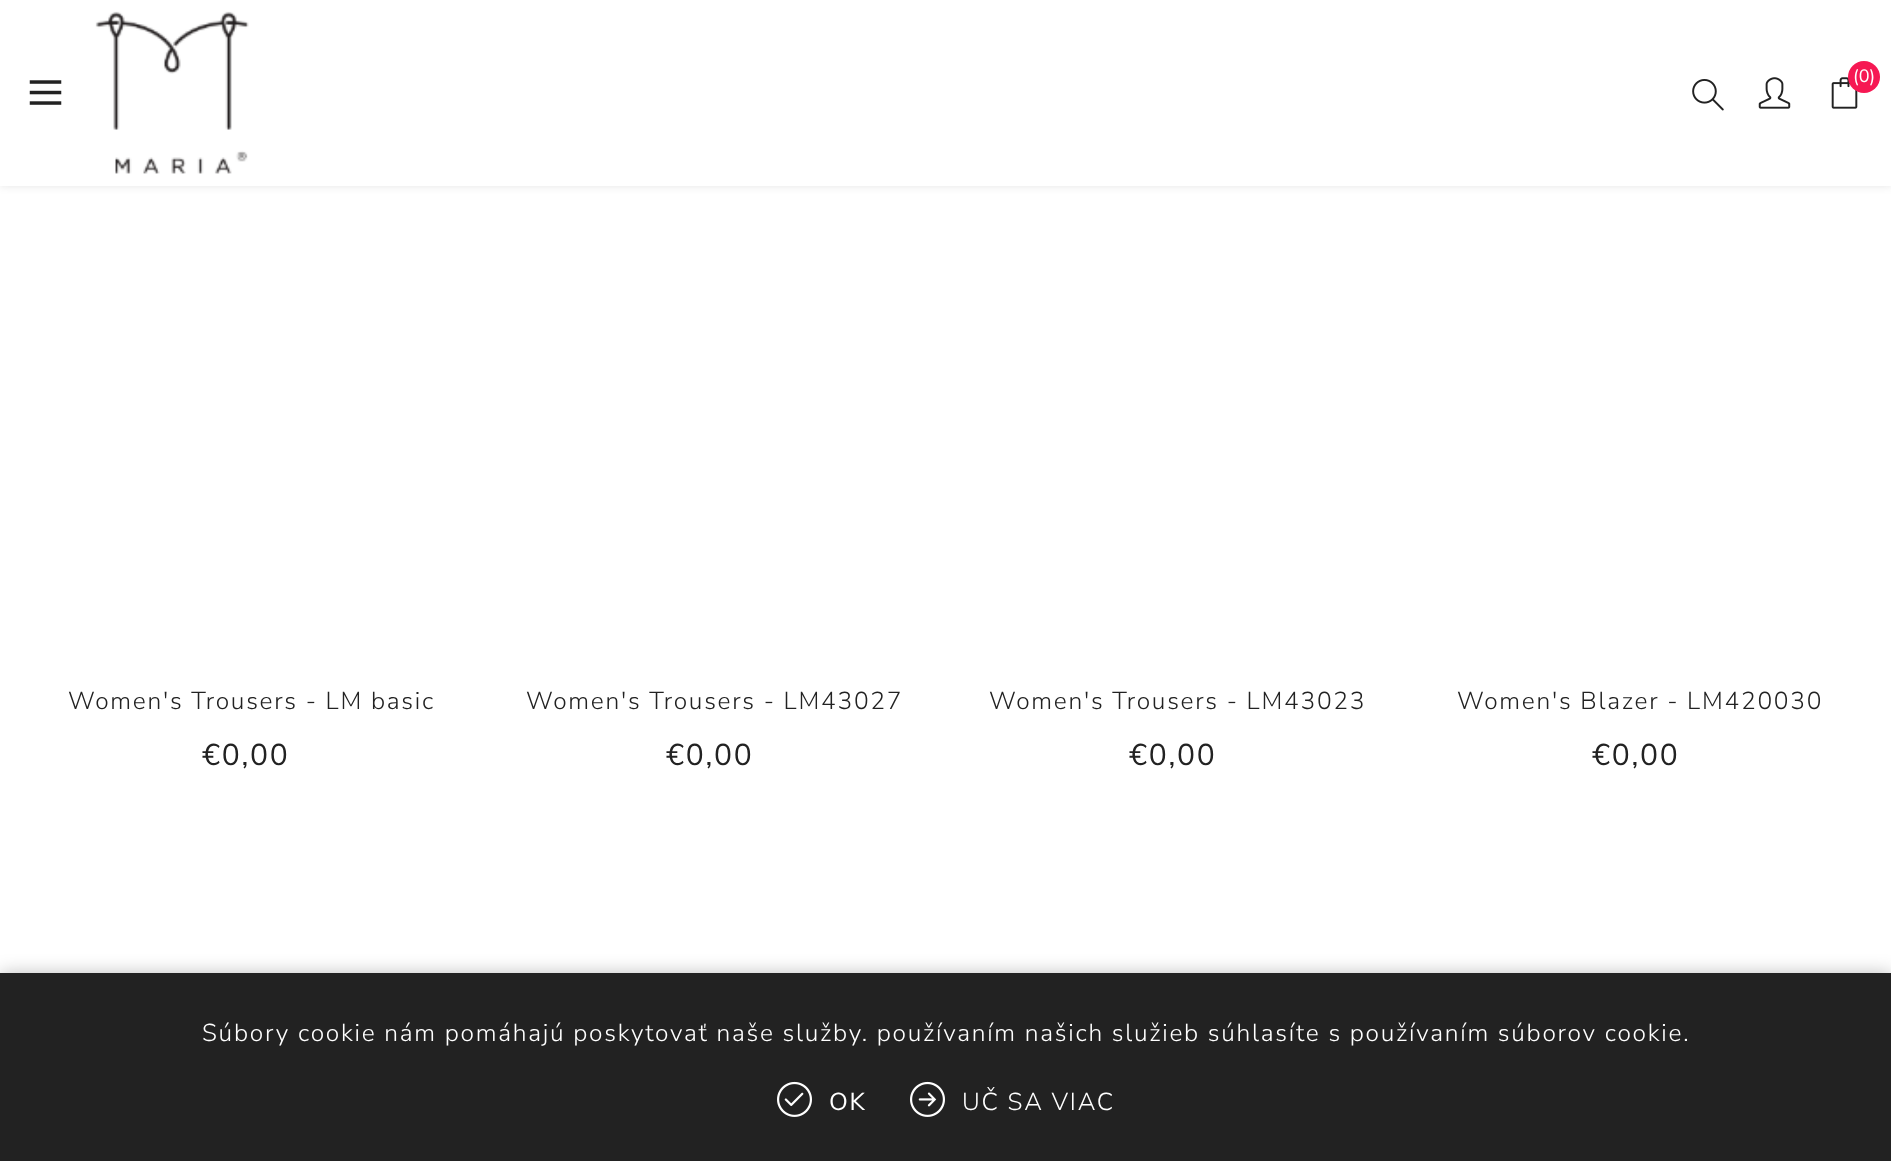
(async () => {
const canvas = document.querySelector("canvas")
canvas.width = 1891
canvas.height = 1161
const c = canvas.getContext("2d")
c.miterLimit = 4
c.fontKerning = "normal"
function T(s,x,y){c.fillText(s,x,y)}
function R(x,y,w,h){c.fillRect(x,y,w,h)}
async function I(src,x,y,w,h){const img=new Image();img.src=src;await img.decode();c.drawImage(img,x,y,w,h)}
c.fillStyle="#fff"
R(0,0,1891,1161)
c.fillStyle="#0000001a"
c.filter="blur(4.5px)"
c.beginPath()
c.rect(0,0,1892,186)
c.fill()
c.filter="none"
c.fillStyle="#fff"
R(0,0,1891,186)
await I("1.png",29,80,33,25)
await I("2.png",95,11,154,163)
await I("3.png",1692,79,32,32)
await I("4.png",1758,77,33,32)
await I("5.png",1831,77,27,32)
c.fillStyle="#f61853"
c.beginPath()
c.arc(1864,77,16,0,7)
c.fill()
c.font="18px Nunito Sans"
c.fillStyle="#fff"
T("(0)",1853,82)
c.letterSpacing="1.75px"
c.font="300 24.5px Nunito Sans"
c.fillStyle="#222"
T("Women's Trousers - LM basic",68,709)
c.font="30px Nunito Sans"
T("€0,00",202,765)
c.font="300 24.5px Nunito Sans"
T("Women's Trousers - LM43027",526,709)
c.font="30px Nunito Sans"
T("€0,00",666,765)
c.font="300 24.5px Nunito Sans"
T("Women's Trousers - LM43023",989,709)
c.font="30px Nunito Sans"
T("€0,00",1129,765)
c.font="300 24.5px Nunito Sans"
T("Women's Blazer - LM420030",1457,709)
c.font="30px Nunito Sans"
T("€0,00",1592,765)
c.fillStyle="#00000040"
c.filter="blur(9px)"
c.beginPath()
c.rect(0,973,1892,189)
c.fill()
c.filter="none"
c.fillStyle="#222"
R(0,973,1891,188)
c.font="300 24.5px Nunito Sans"
c.fillStyle="#fff"
T("Súbory cookie nám pomáhajú poskytovať naše služby. používaním našich služieb súhlasíte s používaním súborov cookie.",202,1041)
await I("6.png",777,1081,35,36)
c.font="24.5px Nunito Sans"
T("OK",829,1110)
await I("7.png",910,1081,35,36)
c.font="300 24.5px Nunito Sans"
T("UČ SA VIAC",962,1110)
})()
